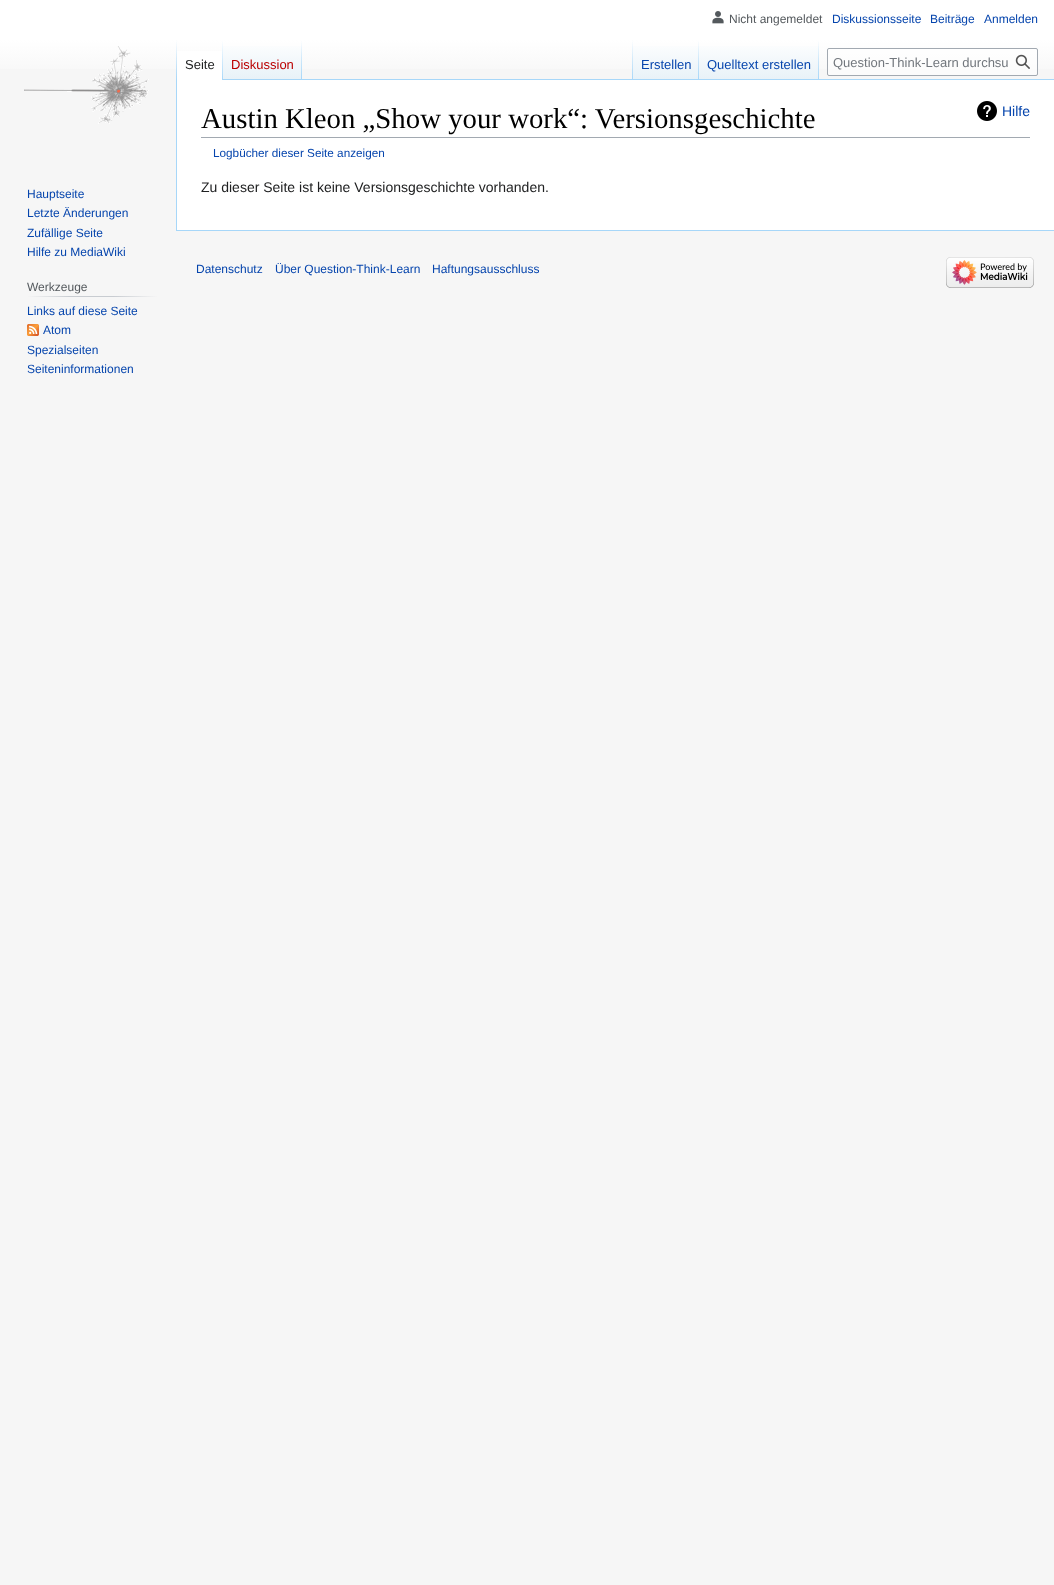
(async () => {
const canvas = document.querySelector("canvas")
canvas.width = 1054
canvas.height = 1585
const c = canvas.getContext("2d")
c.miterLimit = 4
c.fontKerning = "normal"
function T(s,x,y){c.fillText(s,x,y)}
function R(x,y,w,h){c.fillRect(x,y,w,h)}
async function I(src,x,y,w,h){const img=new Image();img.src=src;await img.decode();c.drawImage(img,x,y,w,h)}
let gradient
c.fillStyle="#f6f6f6"
R(0,0,1054,1585)
gradient = c.createLinearGradient(527,0,527,80)
gradient.addColorStop(.5,"#fff")
gradient.addColorStop(1,"#f6f6f6")
c.fillStyle = gradient
R(0,0,1054,69)
await I("1.png",712,11,12,13)
c.font="12px Liberation Sans"
c.fillStyle="#54595d"
T("Nicht angemeldet",729,23)
c.fillStyle="#0645ad"
T("Diskussionsseite",832,23)
T("Beiträge",930,23)
T("Anmelden",984,23)
c.fillStyle="#a7d7f9"
R(176,230,878,1)
R(176,79,1,152)
gradient = c.createLinearGradient(177,40,177,80)
gradient.addColorStop(0,"#a7d7f900")
gradient.addColorStop(1,"#a7d7f9")
c.fillStyle = gradient
R(176,40,1,40)
c.fillStyle="#fff"
R(177,51,45,29)
gradient = c.createLinearGradient(223,40,223,80)
gradient.addColorStop(0,"#fff")
gradient.addColorStop(1,"#a7d7f9")
c.fillStyle = gradient
R(222,40,1,40)
c.font="13px Liberation Sans"
c.fillStyle="#202122"
T("Seite",185,69)
gradient = c.createLinearGradient(263,80,263,40)
gradient.addColorStop(0,"#77c1f6")
gradient.addColorStop(.03,"#e8f2f8")
gradient.addColorStop(1,"#fff")
c.fillStyle = gradient
R(223,46,79,34)
gradient = c.createLinearGradient(302,40,302,80)
gradient.addColorStop(0,"#a7d7f900")
gradient.addColorStop(1,"#a7d7f9")
c.fillStyle = gradient
R(301,40,1,40)
c.fillStyle="#ba0000"
T("Diskussion",231,69)
c.fillStyle="#a7d7f9"
R(302,79,752,1)
gradient = c.createLinearGradient(633,40,633,80)
gradient.addColorStop(0,"#a7d7f900")
gradient.addColorStop(1,"#a7d7f9")
c.fillStyle = gradient
R(632,40,1,40)
gradient = c.createLinearGradient(666,80,666,40)
gradient.addColorStop(0,"#77c1f6")
gradient.addColorStop(.03,"#e8f2f8")
gradient.addColorStop(1,"#fff")
c.fillStyle = gradient
R(633,46,66,33)
gradient = c.createLinearGradient(699,40,699,80)
gradient.addColorStop(0,"#a7d7f900")
gradient.addColorStop(1,"#a7d7f9")
c.fillStyle = gradient
R(698,40,1,40)
c.fillStyle="#0645ad"
T("Erstellen",641,69)
gradient = c.createLinearGradient(759,80,759,40)
gradient.addColorStop(0,"#77c1f6")
gradient.addColorStop(.03,"#e8f2f8")
gradient.addColorStop(1,"#fff")
c.fillStyle = gradient
R(699,46,120,33)
gradient = c.createLinearGradient(819,40,819,80)
gradient.addColorStop(0,"#a7d7f900")
gradient.addColorStop(1,"#a7d7f9")
c.fillStyle = gradient
R(818,40,1,40)
c.fillStyle="#0645ad"
T("Quelltext erstellen",707,69)
c.fillStyle="#ffffff80"
c.beginPath()
c.roundRect(827.5,48.5,210,27,1.5)
c.fill()
c.strokeStyle="#a2a9b1"
c.stroke()
c.fillStyle="#72777d"
T("Question-Think-Learn durchsu",833,67)
await I("2.png",1015,54,15,15)
await I("3.png",24,46,125,78)
c.font="12px Liberation Sans"
c.fillStyle="#0645ad"
T("Hauptseite",27,198)
T("Letzte Änderungen",27,217)
T("Zufällige Seite",27,237)
T("Hilfe zu MediaWiki",27,256)
gradient = c.createLinearGradient(27,297,158,297)
gradient.addColorStop(0,"#f6f6f6")
gradient.addColorStop(.33,"#c8ccd1")
gradient.addColorStop(.66,"#c8ccd1")
gradient.addColorStop(1,"#f6f6f6")
c.fillStyle = gradient
R(27,296,131,1)
c.fillStyle="#54595d"
T("Werkzeuge",27,291)
c.fillStyle="#0645ad"
T("Links auf diese Seite",27,315)
await I("4.png",27,324,12,12)
T("Atom",43,334)
T("Spezialseiten",27,354)
T("Seiteninformationen",27,373)
c.fillStyle="#fff"
R(177,80,877,150)
c.fillStyle="#a2a9b1"
R(201,137,829,1)
c.font="28.8px Liberation Serif"
c.fillStyle="#000"
T("Austin Kleon „Show your work“: Versionsgeschichte",201,128)
await I("5.png",977,101,20,20)
c.font="14px Liberation Sans"
c.fillStyle="#0645ad"
T("Hilfe",1002,116)
c.font="11.75px Liberation Sans"
T("Logbücher dieser Seite anzeigen",213,157)
c.font="14px Liberation Sans"
c.fillStyle="#202122"
T("Zu dieser Seite ist keine Versionsgeschichte vorhanden.",201,192)
c.font="12px Liberation Sans"
c.fillStyle="#0645ad"
T("Datenschutz",196,273)
T("Über Question-Think-Learn",275,273)
T("Haftungsausschluss",432,273)
await I("6.png",946,257,88,31)
})()
